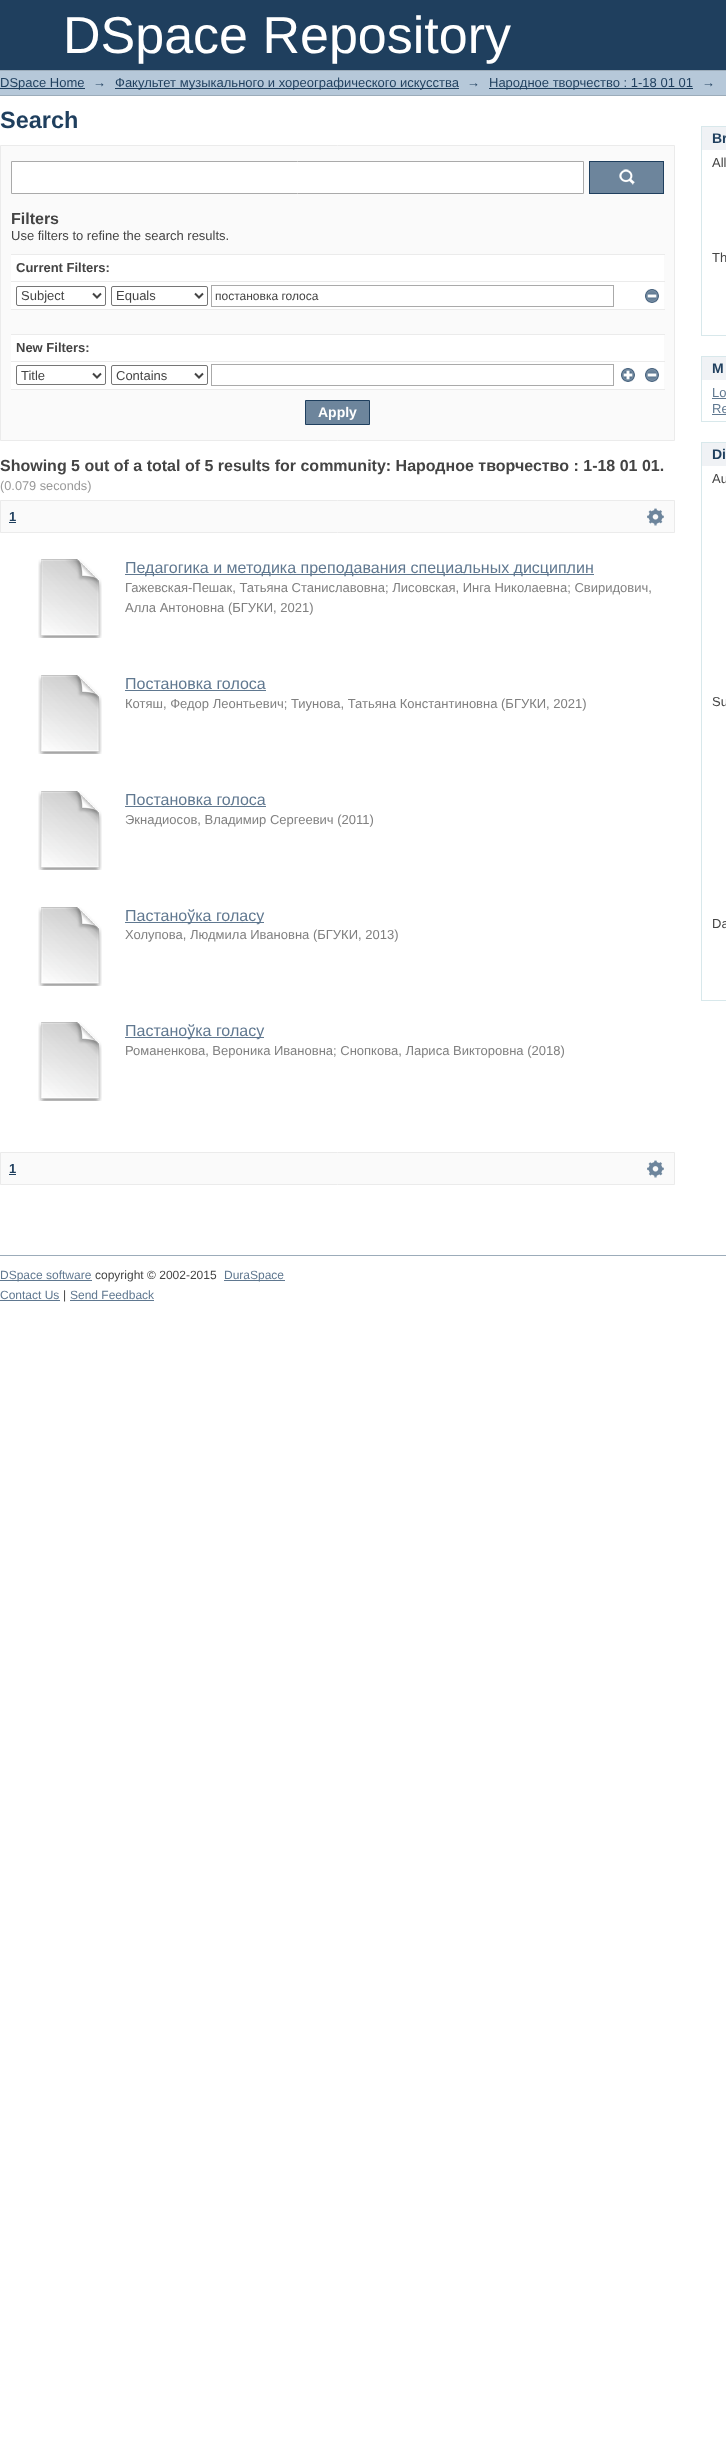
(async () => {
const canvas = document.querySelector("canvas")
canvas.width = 726
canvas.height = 2438
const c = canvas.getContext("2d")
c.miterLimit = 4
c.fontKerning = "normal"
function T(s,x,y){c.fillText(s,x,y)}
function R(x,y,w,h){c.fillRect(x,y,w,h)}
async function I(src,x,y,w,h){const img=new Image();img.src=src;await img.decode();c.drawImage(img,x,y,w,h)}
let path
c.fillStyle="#fff"
R(0,0,726,2438)
c.fillStyle="#1f3f5e"
R(0,0,726,70)
c.font="52px Liberation Sans"
c.fillStyle="#fff"
T("DSpace Repository",63,53)
c.fillStyle="#b6c8d9"
R(0,71,726,24)
c.fillStyle="#9cacba"
R(0,70,726,1)
R(0,95,726,1)
c.fillStyle="#1f3f5e"
R(0,88,85,1)
c.font="13px Liberation Sans"
T("DSpace Home",0,87)
T("→",93,87)
R(115,88,344,1)
T("Факультет музыкального и хореографического искусства",115,87)
T("→",467,87)
R(489,88,204,1)
T("Народное творчество : 1-18 01 01",489,87)
T("→",702,87)
c.font="bold 23.5px Liberation Sans"
T("Search",0,128)
c.fillStyle="#fafafa"
c.beginPath()
c.rect(.5,145.5,674,295)
c.fill()
c.strokeStyle="#ebebeb"
c.stroke()
c.fillStyle="#fff"
c.beginPath()
c.rect(11.5,161.5,572,32)
c.fill()
c.strokeStyle="#aaa"
c.stroke()
c.fillStyle="#6d859c"
R(590,162,73,31)
await I("1.png",619,169,16,16)
c.strokeStyle="#1f3f5e"
c.strokeRect(589.5,161.5,74,32)
c.font="bold 16px Liberation Sans"
c.fillStyle="#444"
T("Filters",11,224)
c.font="13px Liberation Sans"
T("Use filters to refine the search results.",11,240)
c.fillStyle="#fff"
R(11,255,653,134)
c.fillStyle="#ebebeb"
R(11,254,654,1)
c.font="bold 13px Liberation Sans"
c.fillStyle="#444"
T("Current Filters:",16,272)
c.fillStyle="#ebebeb"
R(11,281,654,1)
c.beginPath()
c.roundRect(16.5,286.5,89,19,1.5)
c.strokeStyle="#767676"
c.stroke()
path = new Path2D("M93 293.5l4 4l4-4")
c.strokeStyle="#444"
c.lineWidth=2
c.stroke(path)
c.font="13px Liberation Sans"
c.fillStyle="#444"
T("Subject",21,300)
c.beginPath()
c.roundRect(111.5,286.5,96,19,1.5)
c.strokeStyle="#767676"
c.lineWidth=1
c.stroke()
path = new Path2D("M195 293.5l4 4l4-4")
c.strokeStyle="#444"
c.lineWidth=2
c.stroke(path)
T("Equals",116,300)
c.strokeStyle="#aaa"
c.lineWidth=1
c.strokeRect(211.5,285.5,402,21)
c.font="12px Liberation Sans"
T("постановка голоса",215,300)
await I("2.png",645,289,14,14)
c.fillStyle="#fafafa"
R(11,310,653,24)
c.fillStyle="#ebebeb"
R(11,309,654,1)
R(11,334,654,1)
c.font="bold 13px Liberation Sans"
c.fillStyle="#444"
T("New Filters:",16,352)
c.fillStyle="#ebebeb"
R(11,361,654,1)
c.beginPath()
c.roundRect(16.5,365.5,89,19,1.5)
c.strokeStyle="#767676"
c.stroke()
path = new Path2D("M93 373.5l4 4l4-4")
c.strokeStyle="#444"
c.lineWidth=2
c.stroke(path)
c.font="13px Liberation Sans"
c.fillStyle="#444"
T("Title",21,380)
c.beginPath()
c.roundRect(111.5,365.5,96,19,1.5)
c.strokeStyle="#767676"
c.lineWidth=1
c.stroke()
path = new Path2D("M195 373.5l4 4l4-4")
c.strokeStyle="#444"
c.lineWidth=2
c.stroke(path)
T("Contains",116,380)
c.strokeStyle="#aaa"
c.lineWidth=1
c.strokeRect(211.5,364.5,402,21)
await I("3.png",621,368,14,14)
await I("2.png",645,368,14,14)
c.fillStyle="#ebebeb"
R(11,389,654,1)
c.fillStyle="#6d859c"
c.beginPath()
c.rect(305.5,400.5,64,24)
c.fill()
c.strokeStyle="#1f3f5e"
c.stroke()
c.font="bold 14px Liberation Sans"
c.fillStyle="#fff"
T("Apply",318,417)
c.font="bold 16px Liberation Sans"
c.fillStyle="#444"
T("Showing 5 out of a total of 5 results for community: Народное творчество : 1-18 01 01.",0,471)
c.font="12.75px Liberation Sans"
c.fillStyle="#999"
T("(0.079 seconds)",0,490)
c.fillStyle="#fafafa"
c.beginPath()
c.rect(.5,500.5,674,32)
c.fill()
c.strokeStyle="#ebebeb"
c.stroke()
c.font="bold 13px Liberation Sans"
c.fillStyle="#1f3f5e"
T("1",9,521)
R(9,522,7,1)
await I("4.png",647,508,17,18)
await I("5.png",38,559,64,79)
c.fillStyle="#607890"
R(125,574,469,1)
c.font="16px Liberation Sans"
T("Педагогика и методика преподавания специальных дисциплин",125,573)
c.font="13px Liberation Sans"
c.fillStyle="#808080"
T("Гажевская-Пешак, Татьяна Станиславовна; Лисовская, Инга Николаевна; Свиридович,",125,592)
T("Алла Антоновна (БГУКИ, 2021)",125,612)
await I("5.png",38,675,64,79)
c.font="16px Liberation Sans"
c.fillStyle="#607890"
T("Постановка голоса",125,689)
R(125,690,141,1)
c.font="13px Liberation Sans"
c.fillStyle="#808080"
T("Котяш, Федор Леонтьевич; Тиунова, Татьяна Константиновна (БГУКИ, 2021)",125,708)
await I("5.png",38,791,64,79)
c.font="16px Liberation Sans"
c.fillStyle="#607890"
T("Постановка голоса",125,805)
R(125,806,141,1)
c.font="13px Liberation Sans"
c.fillStyle="#808080"
T("Экнадиосов, Владимир Сергеевич (2011)",125,824)
await I("6.png",38,907,64,79)
c.fillStyle="#607890"
R(125,922,139,1)
c.font="16px Liberation Sans"
T("Пастаноўка голасу",125,921)
c.font="13px Liberation Sans"
c.fillStyle="#808080"
T("Холупова, Людмила Ивановна (БГУКИ, 2013)",125,939)
await I("5.png",38,1022,64,79)
c.fillStyle="#607890"
R(125,1037,139,1)
c.font="16px Liberation Sans"
T("Пастаноўка голасу",125,1036)
c.font="13px Liberation Sans"
c.fillStyle="#808080"
T("Романенкова, Вероника Ивановна; Снопкова, Лариса Викторовна (2018)",125,1055)
c.fillStyle="#fafafa"
c.beginPath()
c.rect(.5,1152.5,674,32)
c.fill()
c.stroke()
c.font="bold 13px Liberation Sans"
c.fillStyle="#1f3f5e"
T("1",9,1173)
R(9,1174,7,1)
await I("4.png",647,1160,17,18)
c.fillStyle="#f0f2f5"
R(702,127,24,23)
c.fillStyle="#d8e8eb"
R(701,126,25,1)
R(701,126,1,24)
c.font="bold 14px Liberation Sans"
c.fillStyle="#1f3f5e"
T("Br",712,143)
c.fillStyle="#d8e8eb"
R(701,335,25,1)
R(701,150,1,186)
c.font="13px Liberation Sans"
c.fillStyle="#444"
T("All",712,167)
T("Th",712,262)
c.fillStyle="#f0f2f5"
R(702,357,24,23)
c.fillStyle="#d8e8eb"
R(701,356,25,1)
R(701,356,1,24)
c.font="bold 14px Liberation Sans"
c.fillStyle="#1f3f5e"
T("M",712,373)
c.fillStyle="#d8e8eb"
R(701,421,25,1)
R(701,380,1,42)
c.font="13px Liberation Sans"
c.fillStyle="#607890"
T("Lo",712,397)
R(712,398,14,1)
T("Re",712,413)
R(712,414,14,1)
c.fillStyle="#f0f2f5"
R(702,443,24,23)
c.fillStyle="#d8e8eb"
R(701,442,25,1)
R(701,442,1,24)
c.font="bold 14px Liberation Sans"
c.fillStyle="#1f3f5e"
T("Di",712,459)
c.fillStyle="#d8e8eb"
R(701,1000,25,1)
R(701,466,1,535)
c.font="13px Liberation Sans"
c.fillStyle="#444"
T("Au",712,483)
T("Su",712,706)
T("Da",712,928)
c.fillStyle="#9cacba"
R(0,1255,726,1)
c.fillStyle="#607890"
R(0,1280,92,1)
c.font="12px Liberation Sans"
T("DSpace software",0,1279)
c.fillStyle="#444"
T("copyright © 2002-2015",95,1279)
c.fillStyle="#607890"
R(224,1280,61,1)
T("DuraSpace",224,1279)
T("Contact Us",0,1299)
R(0,1300,60,1)
c.fillStyle="#444"
T("|",63,1299)
c.fillStyle="#607890"
T("Send Feedback",70,1299)
R(70,1300,84,1)
})()
